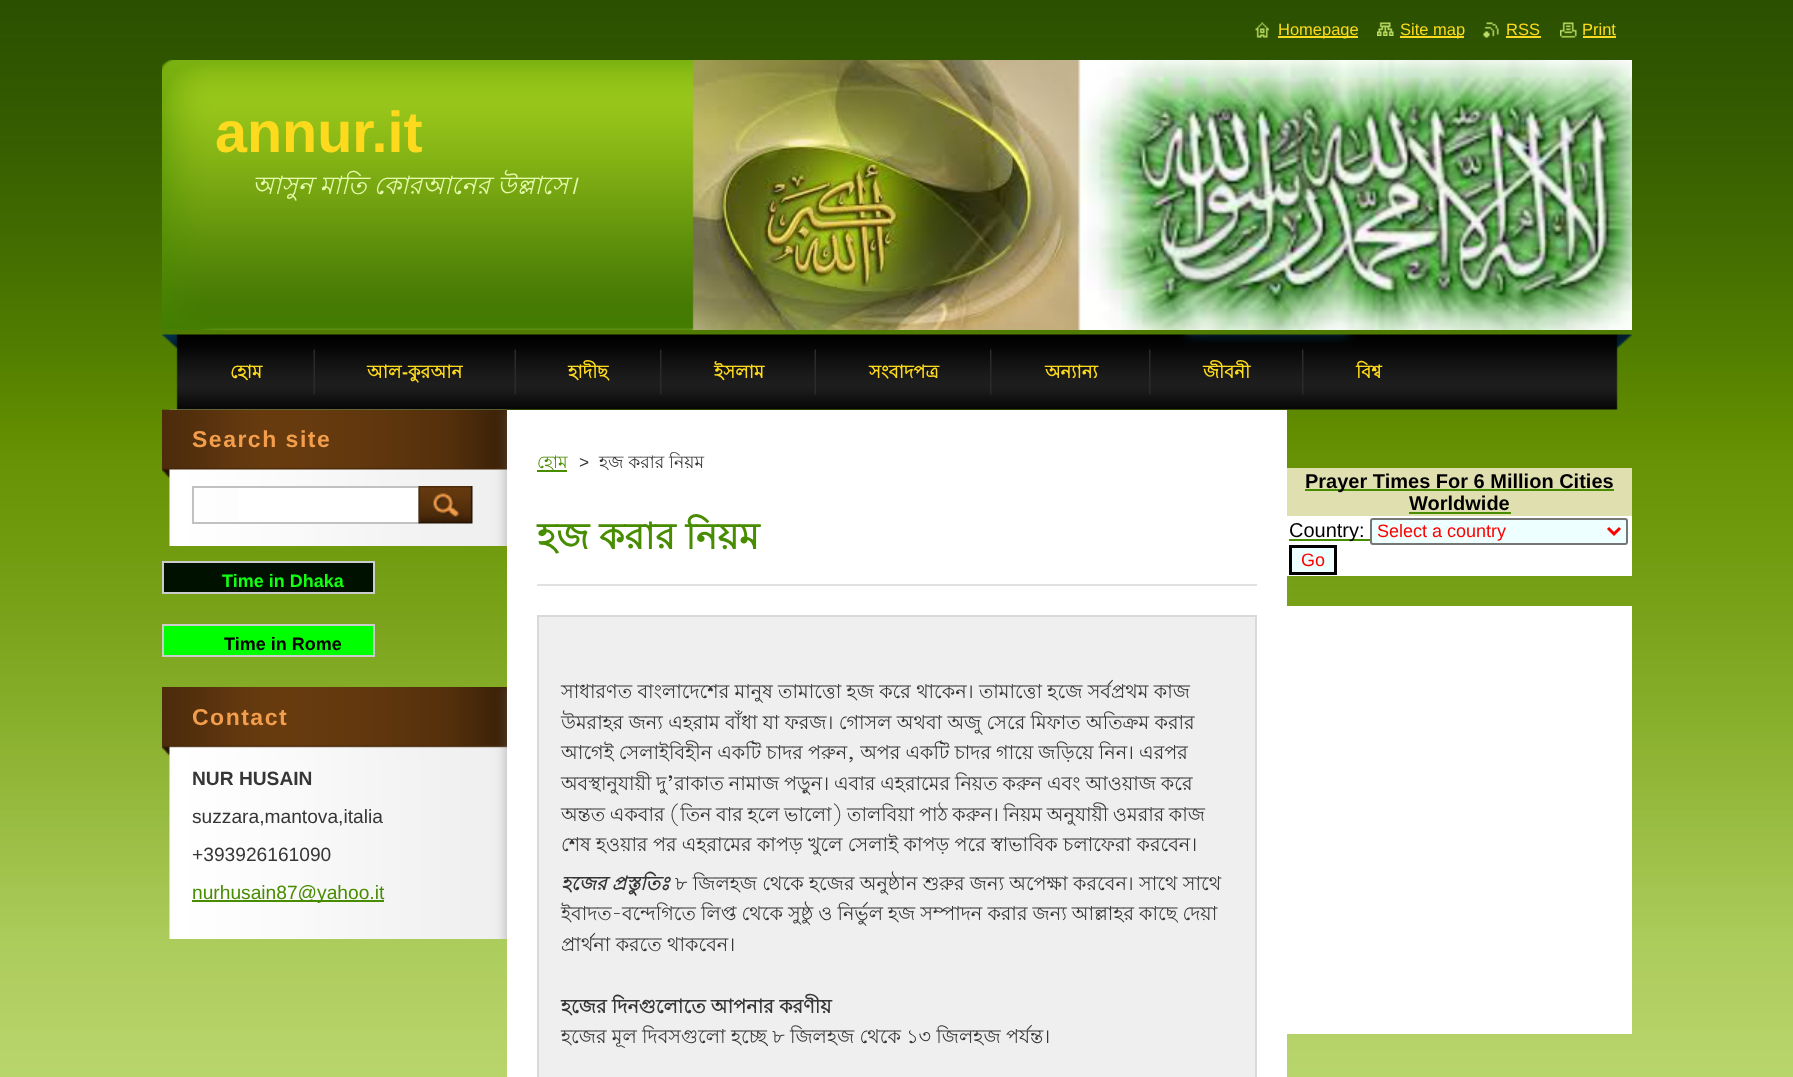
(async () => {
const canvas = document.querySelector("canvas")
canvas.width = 1793
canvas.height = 1077
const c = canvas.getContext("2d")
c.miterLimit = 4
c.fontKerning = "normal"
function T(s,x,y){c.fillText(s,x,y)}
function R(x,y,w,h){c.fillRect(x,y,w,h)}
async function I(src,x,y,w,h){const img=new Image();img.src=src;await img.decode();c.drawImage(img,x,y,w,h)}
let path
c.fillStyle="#fff"
R(0,0,1793,1077)
await I("1.png",0,0,1793,1077)
await I("2.png",1255,22,14,16)
c.fillStyle="#fdda1e"
R(1278,36,80,2)
c.font="16.5px Liberation Sans"
T("Homepage",1278,35)
await I("3.png",1377,22,17,14)
R(1400,36,64,2)
T("Site map",1400,35)
await I("4.png",1483,22,16,16)
T("RSS",1506,35)
R(1506,36,35,2)
await I("5.png",1560,22,17,16)
T("Print",1582,35)
R(1583,36,33,2)
await I("6.png",162,60,1470,270)
c.font="bold 57.5px Liberation Sans"
T("annur.it",215,152)
c.font="italic 25px Lohit Bengali"
c.fillStyle="#e6faad"
T("আসুন মাতি কোরআনের উল্লাসে।",252,194)
await I("7.png",162,334,1470,76)
await I("8.png",313,349,2,46)
c.font="bold 18px Lohit Bengali"
c.fillStyle="#fdda1e"
T("হোম",230,378)
await I("8.png",514,349,2,46)
T("আল",367,378)
c.font="bold 18px Liberation Sans"
T("-",402,378)
c.font="bold 18px Lohit Bengali"
T("কুরআন",408,378)
await I("9.png",660,349,2,46)
T("হাদীছ",568,378)
await I("8.png",814,349,2,46)
T("ইসলাম",714,378)
await I("9.png",990,349,2,46)
T("সংবাদপত্র",869,378)
await I("9.png",1149,349,2,46)
T("অন্যান্য",1045,378)
await I("9.png",1302,349,2,46)
T("জীবনী",1203,378)
T("বিশ্ব",1356,378)
await I("10.png",169,409,338,137)
await I("11.png",162,409,345,70)
c.letterSpacing="1.5px"
c.font="bold 23px Liberation Sans"
c.fillStyle="#f39e4c"
T("Search site",192,447)
c.fillStyle="#fff"
R(239,488,179,34)
c.strokeStyle="#c1c1c1"
c.lineWidth=2
c.strokeRect(193,487,226,36)
await I("12.png",418,486,55,38)
c.fillStyle="#010"
c.beginPath()
c.rect(163,562,211,31)
c.fill()
c.strokeStyle="#ccc"
c.stroke()
c.letterSpacing="0px"
c.font="bold 18px Liberation Sans"
c.fillStyle="#1f1"
T("Time in Dhaka",222,587)
c.fillStyle="#0f0"
c.beginPath()
c.rect(163,625,211,31)
c.fill()
c.stroke()
c.fillStyle="#000"
T("Time in Rome",224,650)
await I("13.png",169,747,338,192)
await I("14.png",162,687,345,69)
c.letterSpacing="1.5px"
c.font="bold 23px Liberation Sans"
c.fillStyle="#f39e4c"
T("Contact",192,725)
c.letterSpacing="0px"
c.font="bold 19.2px Liberation Sans"
c.fillStyle="#363636"
T("NUR HUSAIN",192,785)
c.font="19.2px Liberation Sans"
T("suzzara,mantova,italia",192,823)
T("+393926161090",192,861)
c.fillStyle="#488c00"
R(192,900,192,2)
T("nurhusain87@yahoo.it",192,899)
c.fillStyle="#fff"
R(507,410,780,667)
c.fillStyle="#488c00"
R(537,470,30,2)
c.font="17.25px Lohit Bengali"
T("হোম",537,468)
c.font="17.25px Liberation Sans"
c.fillStyle="#363636"
T(">",579,468)
c.font="17.25px Lohit Bengali"
T("হজ করার নিয়ম",599,468)
c.fillStyle="#e1e1e1"
R(537,584,720,2)
c.font="bold 36.5px Lohit Bengali"
c.fillStyle="#488c00"
T("হজ করার নিয়ম",537,549)
c.fillStyle="#efefef"
c.beginPath()
c.rect(538,616,718,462)
c.fill()
c.strokeStyle="#d9d9d9"
c.stroke()
c.font="19.2px Lohit Bengali"
c.fillStyle="#363636"
T("সাধারণত বাংলাদেশের মানুষ তামাত্তো হজ করে থাকেন। তামাত্তো হজে সর্বপ্রথম কাজ",561,698)
T("উমরাহর জন্য এহরাম বাঁধা যা ফরজ। গোসল অথবা অজু সেরে মিফাত অতিক্রম করার",561,729)
c.wordSpacing="-0.25px"
T("আগেই সেলাইবিহীন একটি চাদর পরুন, অপর একটি চাদর গায়ে জড়িয়ে নিন। এরপর",561,759)
c.wordSpacing="-0.4px"
T("অবস্থানুযায়ী দু’রাকাত নামাজ পড়ুন। এবার এহরামের নিয়ত করুন এবং আওয়াজ করে",561,790)
c.wordSpacing="-0.75px"
T("অন্তত একবার (তিন বার হলে ভালো) তালবিয়া পাঠ করুন। নিয়ম অনুযায়ী ওমরার কাজ",561,821)
c.wordSpacing="0px"
T("শেষ হওয়ার পর এহরামের কাপড় খুলে সেলাই কাপড় পরে স্বাভাবিক চলাফেরা করবেন।",561,851)
c.font="italic bold 19.2px Lohit Bengali"
T("হজের প্রস্তুতিঃ",561,890)
c.font="19.2px Lohit Bengali"
T("৮ জিলহজ থেকে হজের অনুষ্ঠান শুরুর জন্য অপেক্ষা করবেন। সাথে সাথে",675,890)
c.wordSpacing="-0.25px"
T("ইবাদত-বন্দেগিতে লিপ্ত থেকে সুষ্ঠু ও নির্ভুল হজ সম্পাদন করার জন্য আল্লাহর কাছে দেয়া",561,920)
c.wordSpacing="0px"
T("প্রার্থনা করতে থাকবেন।",561,951)
c.font="bold 19.2px Lohit Bengali"
T("হজের দিনগুলোতে আপনার করণীয়",561,1013)
c.font="19.2px Lohit Bengali"
T("হজের মূল দিবসগুলো হচ্ছে ৮ জিলহজ থেকে ১৩ জিলহজ পর্যন্ত।",561,1043)
c.fillStyle="#e0dfb0"
R(1287,468,345,48)
c.fillStyle="#488c00"
R(1305,489,309,2)
c.font="bold 20px Liberation Sans"
c.fillStyle="#000"
T("Prayer Times For 6 Million Cities",1305,488)
T("Worldwide",1409,510)
c.fillStyle="#488c00"
R(1409,512,102,2)
c.fillStyle="#fff"
R(1287,516,345,60)
c.fillStyle="#488c00"
R(1289,539,81,2)
c.font="20px Liberation Sans"
c.fillStyle="#000"
T("Country:",1289,537)
c.fillStyle="#eff"
c.beginPath()
c.roundRect(1371,519,256,25,2)
c.fill()
c.strokeStyle="#767676"
c.stroke()
path = new Path2D("M1608 528l6 6l6-6")
c.strokeStyle="#f00"
c.lineWidth=3
c.stroke(path)
c.font="18px Liberation Sans"
c.fillStyle="#f00"
T("Select a country",1377,537)
c.fillStyle="#eff"
c.beginPath()
c.rect(1290.5,546.5,45,27)
c.fill()
c.strokeStyle="#000"
c.stroke()
c.fillStyle="#f00"
T("Go",1301,566)
c.fillStyle="#fff"
R(1287,606,345,428)
})()
